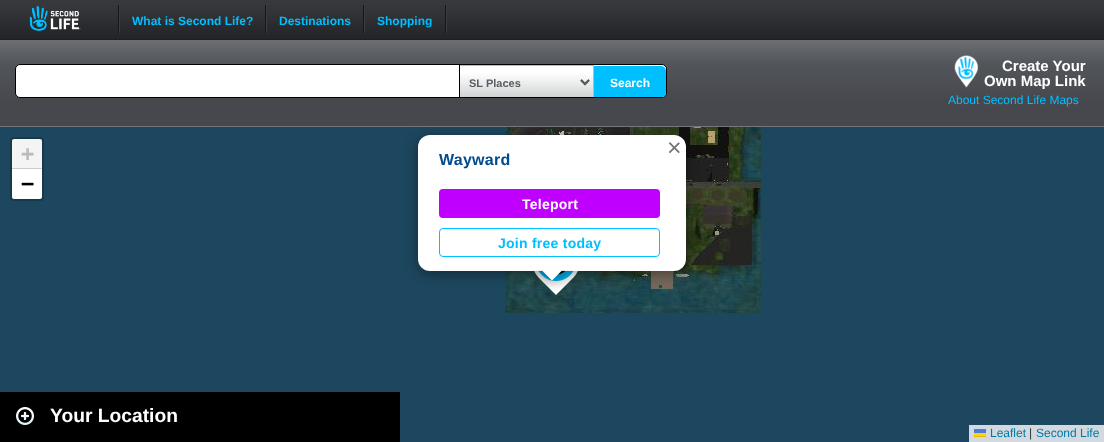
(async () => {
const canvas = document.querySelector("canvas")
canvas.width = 1104
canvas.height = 442
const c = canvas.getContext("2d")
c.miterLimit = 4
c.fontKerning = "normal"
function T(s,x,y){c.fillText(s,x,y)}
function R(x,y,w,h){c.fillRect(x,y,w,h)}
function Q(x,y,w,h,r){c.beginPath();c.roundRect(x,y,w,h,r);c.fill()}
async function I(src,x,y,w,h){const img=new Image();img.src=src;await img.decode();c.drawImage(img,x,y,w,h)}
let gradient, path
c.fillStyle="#1d475f"
R(0,0,1104,442)
await I("1.png",0,0,1104,40)
await I("2.png",29,6,52,25)
c.fillStyle="#3a3e42"
R(119,5,1,28)
c.fillStyle="#161616"
R(118,5,1,28)
c.font="bold 12px Liberation Sans"
c.fillStyle="#00bfff"
T("What is Second Life?",132,25)
c.fillStyle="#3a3e42"
R(266,5,1,28)
c.fillStyle="#161616"
R(265,5,1,28)
c.fillStyle="#00bfff"
T("Destinations",279,25)
c.fillStyle="#3a3e42"
R(364,5,1,28)
c.fillStyle="#161616"
R(363,5,1,28)
c.fillStyle="#00bfff"
T("Shopping",377,25)
c.fillStyle="#3a3e42"
R(446,5,1,28)
c.fillStyle="#161616"
R(445,5,1,28)
await I("5.png",505,127,256,186)
await I("6.png",534,271,44,24)
c.fillStyle="#00000066"
c.filter="blur(7px)"
c.beginPath()
c.roundRect(418,138,268,136,12)
c.fill()
c.filter="none"
gradient = c.createLinearGradient(0,126,0,40)
gradient.addColorStop(.29,"#47484d")
gradient.addColorStop(.71,"#515559")
gradient.addColorStop(1,"#6b6e73")
c.fillStyle = gradient
R(0,40,1104,86)
c.fillStyle="#72777e"
R(0,126,1104,1)
c.fillStyle="#fff"
c.beginPath()
c.roundRect(15.5,64.5,651,33,4.5)
c.fill()
c.strokeStyle="#000"
c.stroke()
await I("3.png",460,66,133,31)
c.fillStyle="#bbb"
R(459,65,135,1)
R(593,65,1,32)
c.fillStyle="#000"
R(459,65,1,32)
path = new Path2D("M581 80l4 4l4-4")
c.strokeStyle="#595c62"
c.lineWidth=2
c.stroke(path)
c.font="bold 11px Liberation Sans"
c.fillStyle="#595c62"
T("SL Places",469,87)
c.save()
c.beginPath()
c.roundRect(16,65,650,32,4)
c.clip()
c.fillStyle="#00bfff"
c.beginPath()
c.roundRect(594,66,72,34,[0,5,5,0])
c.fill()
c.restore()
c.font="bold 12px Liberation Sans"
c.fillStyle="#fff"
T("Search",610,87)
await I("4.png",954,55,25,33)
c.font="bold 15px Liberation Sans"
T("Create Your",1002,71)
T("Own Map Link",984,86)
c.font="12px Liberation Sans"
c.fillStyle="#00bfff"
T("About Second Life Maps",948,104)
c.fillStyle="#fff"
Q(418,135,268,136,12)
c.font="25px Liberation Sans"
c.fillStyle="#757575"
T("×",667,156)
c.letterSpacing="0.25px"
c.font="bold 16px Liberation Sans"
c.fillStyle="#014a8e"
T("Wayward",439,165)
c.fillStyle="#bf00ff"
Q(439,189,221,29,4)
c.font="bold 14px Liberation Sans"
c.fillStyle="#fff"
T("Teleport",522,209)
c.beginPath()
c.roundRect(439.5,228.5,220,28,3.5)
c.strokeStyle="#00bfff"
c.lineWidth=1
c.stroke()
c.fillStyle="#00bfff"
T("Join free today",498,248)
c.save()
c.beginPath()
c.rect(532,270,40,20)
c.clip()
c.fillStyle="#00000066"
c.filter="blur(7px)"
c.beginPath()
c.rect(544,263,17,17)
c.fill()
c.filter="none"
c.restore()
c.save()
c.beginPath()
c.rect(532,270,40,20)
c.clip()
c.fillStyle="#fff"
path = new Path2D("M552 256.5l12 12l-12 12l-12-12z")
c.fill(path)
c.restore()
c.beginPath()
c.roundRect(11,138,32,62,3)
c.strokeStyle="#17394c"
c.lineWidth=2
c.stroke()
c.fillStyle="#f4f4f4"
c.beginPath()
c.roundRect(12,139,30,30,[2,2,0,0])
c.fill()
c.fillStyle="#ccc"
R(12,168,30,1)
c.letterSpacing="0px"
c.font="bold 22px DejaVu Sans Mono"
c.fillStyle="#bbb"
T("+",21,161)
c.fillStyle="#fff"
c.beginPath()
c.roundRect(12,169,30,30,[0,0,2,2])
c.fill()
c.fillStyle="#000"
T("−",21,191)
c.fillStyle="#d2dadf"
R(969,425,135,17)
c.font="12px Liberation Sans"
c.fillStyle="#0078a8"
T("Leaflet",990,437)
c.fillStyle="#4c7be1"
R(974,429,12,4)
c.fillStyle="#ffd500"
R(974,433,12,3)
c.fillStyle="#e0bc00"
R(974,436,12,1)
c.fillStyle="#333"
T("|",1029,437)
c.fillStyle="#0078a8"
T("Second Life",1036,437)
c.fillStyle="#000"
R(0,392,400,50)
await I("7.png",16,407,18,18)
c.font="bold 19.25px Liberation Sans"
c.fillStyle="#fff"
T("Your Location",50,422)
})()
